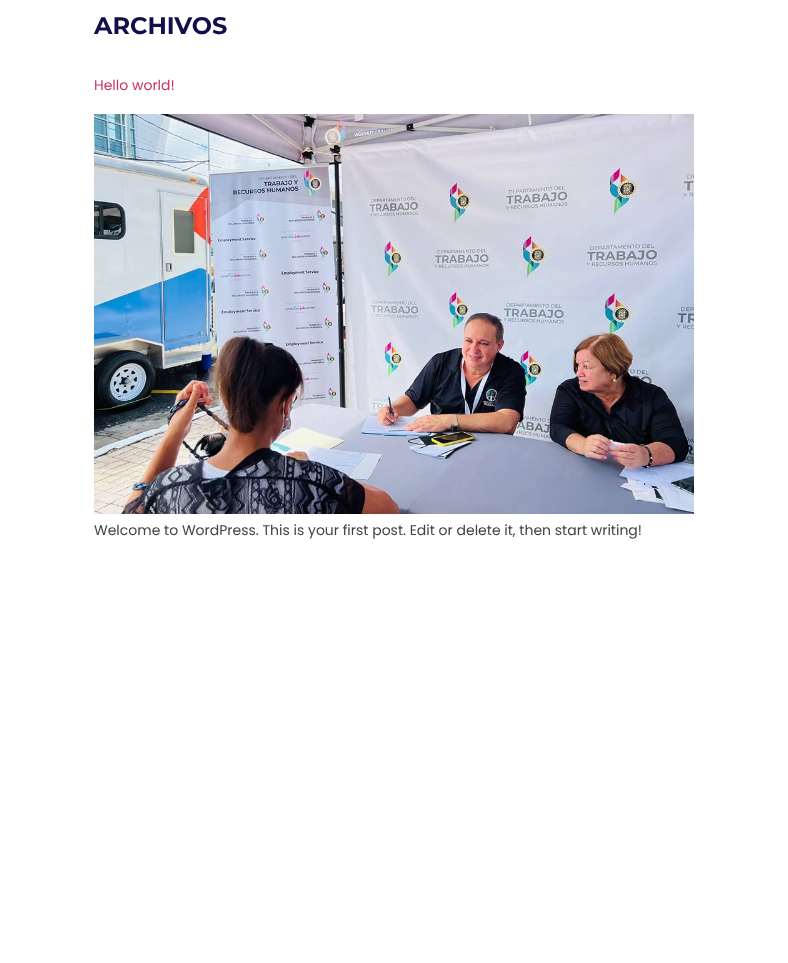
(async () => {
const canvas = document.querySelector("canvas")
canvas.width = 788
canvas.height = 963
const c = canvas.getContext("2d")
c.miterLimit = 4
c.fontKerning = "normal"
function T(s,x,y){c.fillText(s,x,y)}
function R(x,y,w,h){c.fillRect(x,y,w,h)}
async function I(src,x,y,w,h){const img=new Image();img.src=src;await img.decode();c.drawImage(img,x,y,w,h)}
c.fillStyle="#fff"
R(0,0,788,963)
c.font="bold 24px Montserrat"
c.fillStyle="#120f4c"
T("ARCHIVOS",94,34)
c.font="14px Poppins"
c.fillStyle="#c36"
T("Hello world!",94,90)
await I("1.png",94,114,600,400)
c.fillStyle="#424242"
T("Welcome to WordPress. This is your first post. Edit or delete it, then start writing!",94,535)
})()
